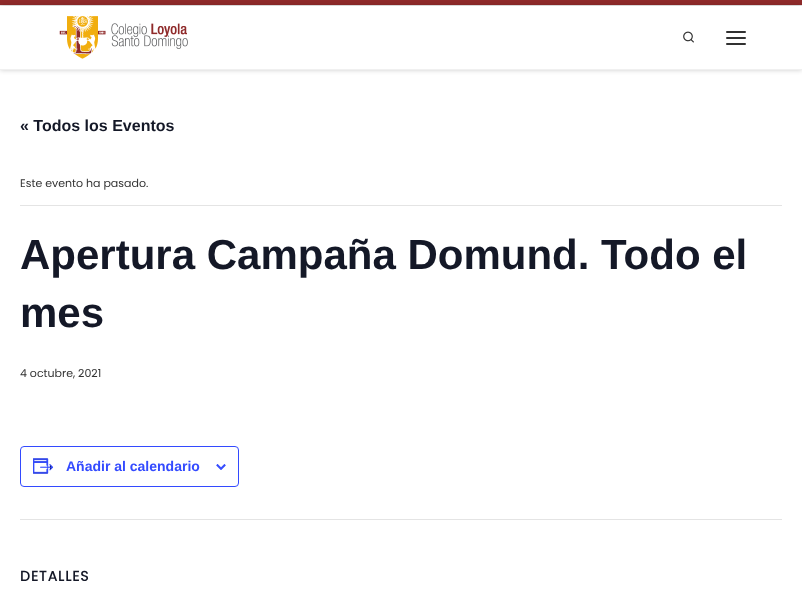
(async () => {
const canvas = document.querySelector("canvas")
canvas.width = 802
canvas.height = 599
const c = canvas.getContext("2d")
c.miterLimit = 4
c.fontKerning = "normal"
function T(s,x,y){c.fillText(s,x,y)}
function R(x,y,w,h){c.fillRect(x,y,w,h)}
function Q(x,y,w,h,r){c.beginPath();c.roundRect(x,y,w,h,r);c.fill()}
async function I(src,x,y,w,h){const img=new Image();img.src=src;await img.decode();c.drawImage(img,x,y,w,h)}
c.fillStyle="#fff"
R(0,0,802,599)
c.fillStyle="#8f2a2a"
R(0,0,802,5)
c.fillStyle="#ececec"
R(0,5,802,1)
c.fillStyle="#00000033"
c.filter="blur(2.5px)"
c.beginPath()
c.rect(0,6,802,64)
c.fill()
c.filter="none"
c.fillStyle="#fff"
R(0,6,802,63)
await I("1.png",59,16,129,43)
await I("2.png",683,31,11,12)
c.fillStyle="#313131"
Q(726,31,20,2,1)
Q(726,37,20,2,1)
Q(726,43,20,2,1)
c.fillStyle="#f0f0f0"
R(0,69,802,1)
c.font="bold 16px Liberation Sans"
c.fillStyle="#141827"
T("« Todos los Eventos",20,131)
c.fillStyle="#e4e4e4"
R(20,205,762,1)
c.font="11px Poppins"
c.fillStyle="#333"
T("Este evento ha pasado.",20,187)
c.font="bold 42px Liberation Sans"
c.fillStyle="#141827"
T("Apertura Campaña Domund. Todo el",20,269)
T("mes",20,327)
c.font="11px Poppins"
c.fillStyle="#333"
T("4 octubre, 2021",20,377)
c.beginPath()
c.roundRect(20.5,446.5,218,40,3.5)
c.strokeStyle="#334aff"
c.stroke()
await I("3.png",33,458,21,16)
c.font="bold 14px Liberation Sans"
c.fillStyle="#334aff"
T("Añadir al calendario",66,471)
await I("4.png",216,464,10,6)
c.fillStyle="#e4e4e4"
R(20,519,762,1)
c.letterSpacing="1px"
c.font="bold 14px Poppins"
c.fillStyle="#141827"
T("DETALLES",20,581)
})()
